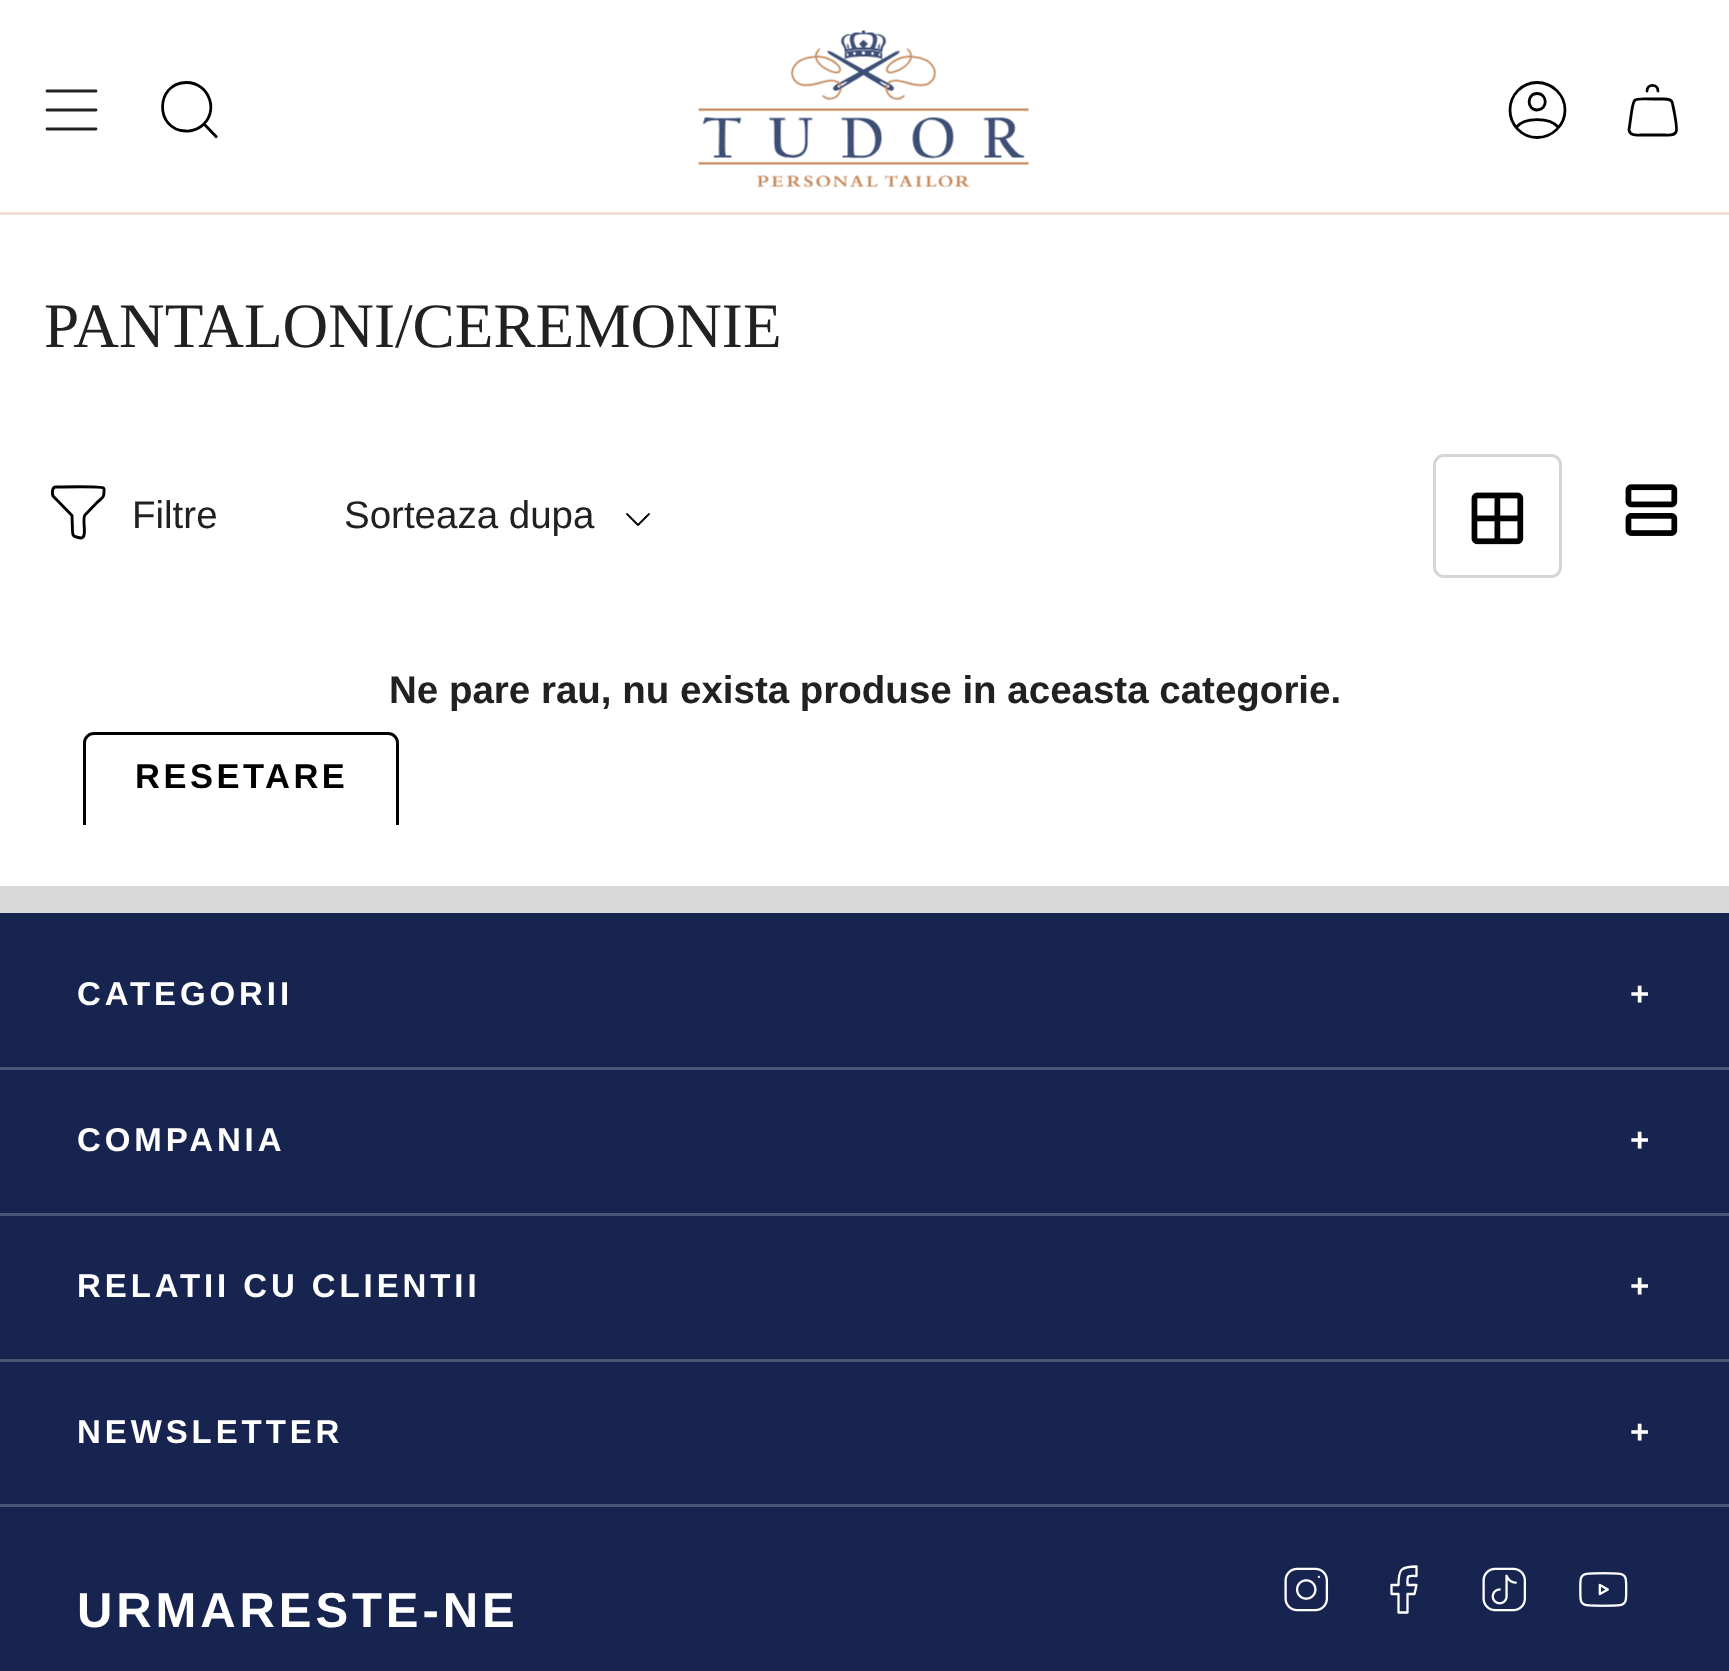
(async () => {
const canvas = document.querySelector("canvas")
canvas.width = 1729
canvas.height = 1671
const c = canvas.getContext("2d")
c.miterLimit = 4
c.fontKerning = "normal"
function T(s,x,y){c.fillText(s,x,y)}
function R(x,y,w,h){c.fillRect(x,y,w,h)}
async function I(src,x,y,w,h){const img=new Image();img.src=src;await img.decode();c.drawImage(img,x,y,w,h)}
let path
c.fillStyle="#fff"
R(0,0,1729,1671)
c.fillStyle="#f0dfd4"
R(0,212,1729,3)
path = new Path2D("M47 91h49m-49 19h49m-49 19h49")
c.strokeStyle="#212121"
c.lineWidth=2.8
c.lineCap="round"
c.lineJoin="round"
c.stroke(path)
path = new Path2D("M186.5 82.5c23 0 33.5 30 14.5 44c-4.5 3-10 5-15.5 4.5c-31.5-1.5-30-48.5 1-48.5zm17.5 41.5l13 13.5")
c.strokeStyle="#000"
c.lineCap="butt"
c.lineJoin="miter"
c.stroke(path)
await I("1.png",698,30,331,158)
path = new Path2D("M1537 82.5c-15 0-27 12.5-27 27.5c0 15 12 27.5 27 27.5c15.5 0 28-12.5 28-27.5c0-15-12.5-27.5-28-27.5zm-21 45c8.5-10.5 34-10.5 42.5 0m-21.5-17.5c11 0 11-16.5 0-16.5c-10.5 0-10.5 16.5 0 16.5z")
c.lineCap="round"
c.lineJoin="round"
c.stroke(path)
path = new Path2D("M1672.5 103.5c1 5 5.5 25 3.5 28.5c-2 4-7.5 3-11 3h-24.5c-4 0-10.5 1-11.5-5l2-14c3-20 1-17 22-17h9.5c4 0 9.5-.5 10 4.5zm-14.5-12.5c0-7.5-11-7.5-11 0")
c.stroke(path)
c.font="63.25px Liberation Serif"
c.fillStyle="#212121"
T("PANTALONI/CEREMONIE",44,347)
path = new Path2D("M55.5 487c5.5 0 46-1 48 1c1 1 .5 2 .5 3.5c0 6.5-1.5 5.5-7 11l-12 12.5c-3.5 4 3 23-4 23h-.5c-6-1.5-8-1-8-7l-.5-15.5l-19-19.5c-1-2.5-1-9 2.5-9z")
c.lineWidth=2.9
c.stroke(path)
c.font="38.5px Liberation Sans"
T("Filtre",132,528)
T("Sorteaza dupa",344,528)
path = new Path2D("M627 514l11 11l11-11")
c.lineWidth=1.8
c.stroke(path)
c.beginPath()
c.roundRect(1434.5,455.5,126,121,9.5)
c.strokeStyle="#d5d5d5"
c.lineWidth=3
c.lineJoin="miter"
c.stroke()
await I("2.png",1471,492,53,53)
await I("3.png",1625,484,53,52)
c.font="bold 38.5px Liberation Sans"
T("Ne pare rau, nu exista produse in aceasta categorie.",389,703)
c.save()
c.beginPath()
c.rect(0,58,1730,767)
c.clip()
c.beginPath()
c.roundRect(84.5,733.5,313,137,9.5)
c.strokeStyle="#000"
c.stroke()
c.restore()
c.letterSpacing="3.5px"
c.font="bold 34.5px Liberation Sans"
c.fillStyle="#000"
T("RESETARE",135,788)
c.fillStyle="#172450"
R(0,913,1729,758)
c.fillStyle="#d9d9d9"
R(0,886,1729,27)
c.fillStyle="#4b5575"
R(0,1067,1729,3)
c.letterSpacing="3.9px"
c.font="bold 33px Liberation Sans"
c.fillStyle="#fff"
T("CATEGORII",77,1005)
T("+",1630,1005)
c.fillStyle="#4b5575"
R(0,1213,1729,3)
c.fillStyle="#fff"
T("COMPANIA",77,1151)
T("+",1630,1151)
c.fillStyle="#4b5575"
R(0,1359,1729,3)
c.fillStyle="#fff"
T("RELATII CU CLIENTII",77,1297)
T("+",1630,1297)
c.fillStyle="#4b5575"
R(0,1504,1729,3)
c.fillStyle="#fff"
T("NEWSLETTER",77,1443)
T("+",1630,1443)
c.font="bold 49px Liberation Sans"
T("URMARESTE-NE",77,1627)
await I("4.png",1284,1567,45,45)
path = new Path2D("M1416.5 1566.5c-15.5 0-18 2.5-18 18.5h-7v9h7v18.5h9v-18.5h7l2-9h-9c0-10.5-1-9 9-9z")
c.strokeStyle="#fff"
c.lineWidth=2.3
c.lineJoin="round"
c.stroke(path)
await I("5.png",1482,1567,45,45)
await I("6.png",1579,1572,49,35)
})()
